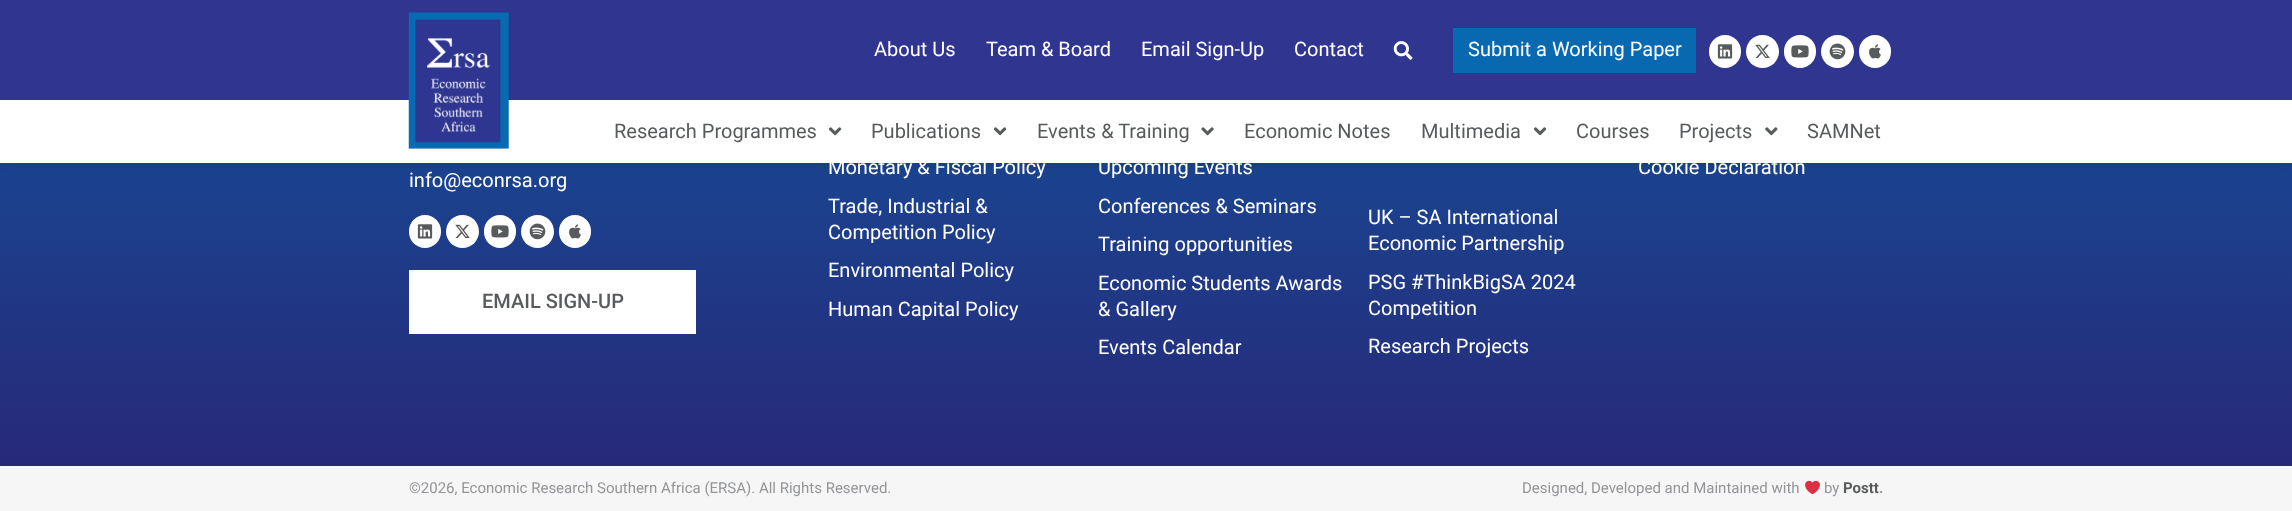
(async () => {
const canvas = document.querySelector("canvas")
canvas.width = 2292
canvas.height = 511
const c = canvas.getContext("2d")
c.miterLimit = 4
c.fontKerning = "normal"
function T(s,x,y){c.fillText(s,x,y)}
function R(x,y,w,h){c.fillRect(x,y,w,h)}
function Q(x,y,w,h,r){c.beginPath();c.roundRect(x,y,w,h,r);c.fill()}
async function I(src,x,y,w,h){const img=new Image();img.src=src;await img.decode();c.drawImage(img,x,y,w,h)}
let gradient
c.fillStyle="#fff"
R(0,0,2292,511)
gradient = c.createLinearGradient(1146,-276,1146,466)
gradient.addColorStop(0,"#0869b1")
gradient.addColorStop(1,"#272978")
c.fillStyle = gradient
R(0,163,2292,303)
c.fillStyle="#00000026"
c.filter="blur(6px)"
c.beginPath()
c.rect(0,100,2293,63)
c.fill()
c.filter="none"
c.fillStyle="#30358f"
R(0,0,2292,100)
c.fillStyle="#fff"
R(0,100,2292,63)
await I("1.png",408,12,101,138)
c.font="20px Roboto"
T("About Us",874,56)
T("Team & Board",986,56)
T("Email Sign-Up",1141,56)
T("Contact",1294,56)
await I("2.png",1393,41,20,19)
c.fillStyle="#0869b1"
R(1453,28,243,45)
c.fillStyle="#fff"
T("Submit a Working Paper",1468,56)
Q(1709,35,32,33,16)
await I("3.png",1717,44,16,15)
c.beginPath()
c.arc(1762.5,51.5,16.5,0,7)
c.fill()
await I("4.png",1755,44,15,14)
Q(1784,35,32,33,16)
await I("5.png",1791,45,18,13)
c.beginPath()
c.arc(1837.5,51.5,16.5,0,7)
c.fill()
await I("6.png",1829,43,17,17)
Q(1859,35,32,33,16)
await I("7.png",1869,44,12,15)
c.fillStyle="#585b5c"
T("Research Programmes",614,138)
await I("8.png",828,127,14,9)
T("Publications",871,138)
await I("8.png",993,127,14,9)
T("Events & Training",1037,138)
await I("9.png",1201,127,13,9)
T("Economic Notes",1244,138)
T("Multimedia",1421,138)
await I("8.png",1533,127,14,9)
T("Courses",1576,138)
T("Projects",1679,138)
await I("10.png",1765,127,13,9)
T("SAMNet",1807,138)
c.fillStyle="#fff"
T("Monetary & Fiscal Policy",828,174)
T("Trade, Industrial &",828,213)
T("Competition Policy",828,239)
T("Environmental Policy",828,277)
T("Human Capital Policy",828,316)
T("Upcoming Events",1098,174)
T("Conferences & Seminars",1098,213)
T("Training opportunities",1098,251)
T("Economic Students Awards",1098,290)
T("& Gallery",1098,316)
T("Events Calendar",1098,354)
T("Cookie Declaration",1638,174)
T("info@econrsa.org",409,187)
Q(409,215,32,33,16)
await I("3.png",417,224,16,15)
c.beginPath()
c.arc(462.5,231.5,16.5,0,7)
c.fill()
await I("4.png",455,224,15,14)
Q(484,215,32,33,16)
await I("5.png",491,225,18,13)
c.beginPath()
c.arc(537.5,231.5,16.5,0,7)
c.fill()
await I("6.png",529,223,17,17)
Q(559,215,32,33,16)
await I("7.png",569,224,12,15)
R(409,270,287,64)
c.font="500 20px Roboto"
c.fillStyle="#585b5c"
T("EMAIL SIGN-UP",482,308)
c.font="20px Roboto"
c.fillStyle="#fff"
T("UK – SA International",1368,224)
T("Economic Partnership",1368,250)
T("PSG #ThinkBigSA 2024",1368,289)
T("Competition",1368,315)
T("Research Projects",1368,353)
c.fillStyle="#f6f6f6"
R(0,466,2292,45)
c.font="15px Roboto"
c.fillStyle="#939598"
T("©2026, Economic Research Southern Africa (ERSA). All Rights Reserved.",409,493)
T("Designed, Developed and Maintained with",1522,493)
await I("11.png",1805,480,15,15)
T("by",1824,493)
c.font="bold 15px Roboto"
c.fillStyle="#585b5c"
T("Postt",1843,493)
c.fillStyle="#939598"
T(".",1879,493)
})()
